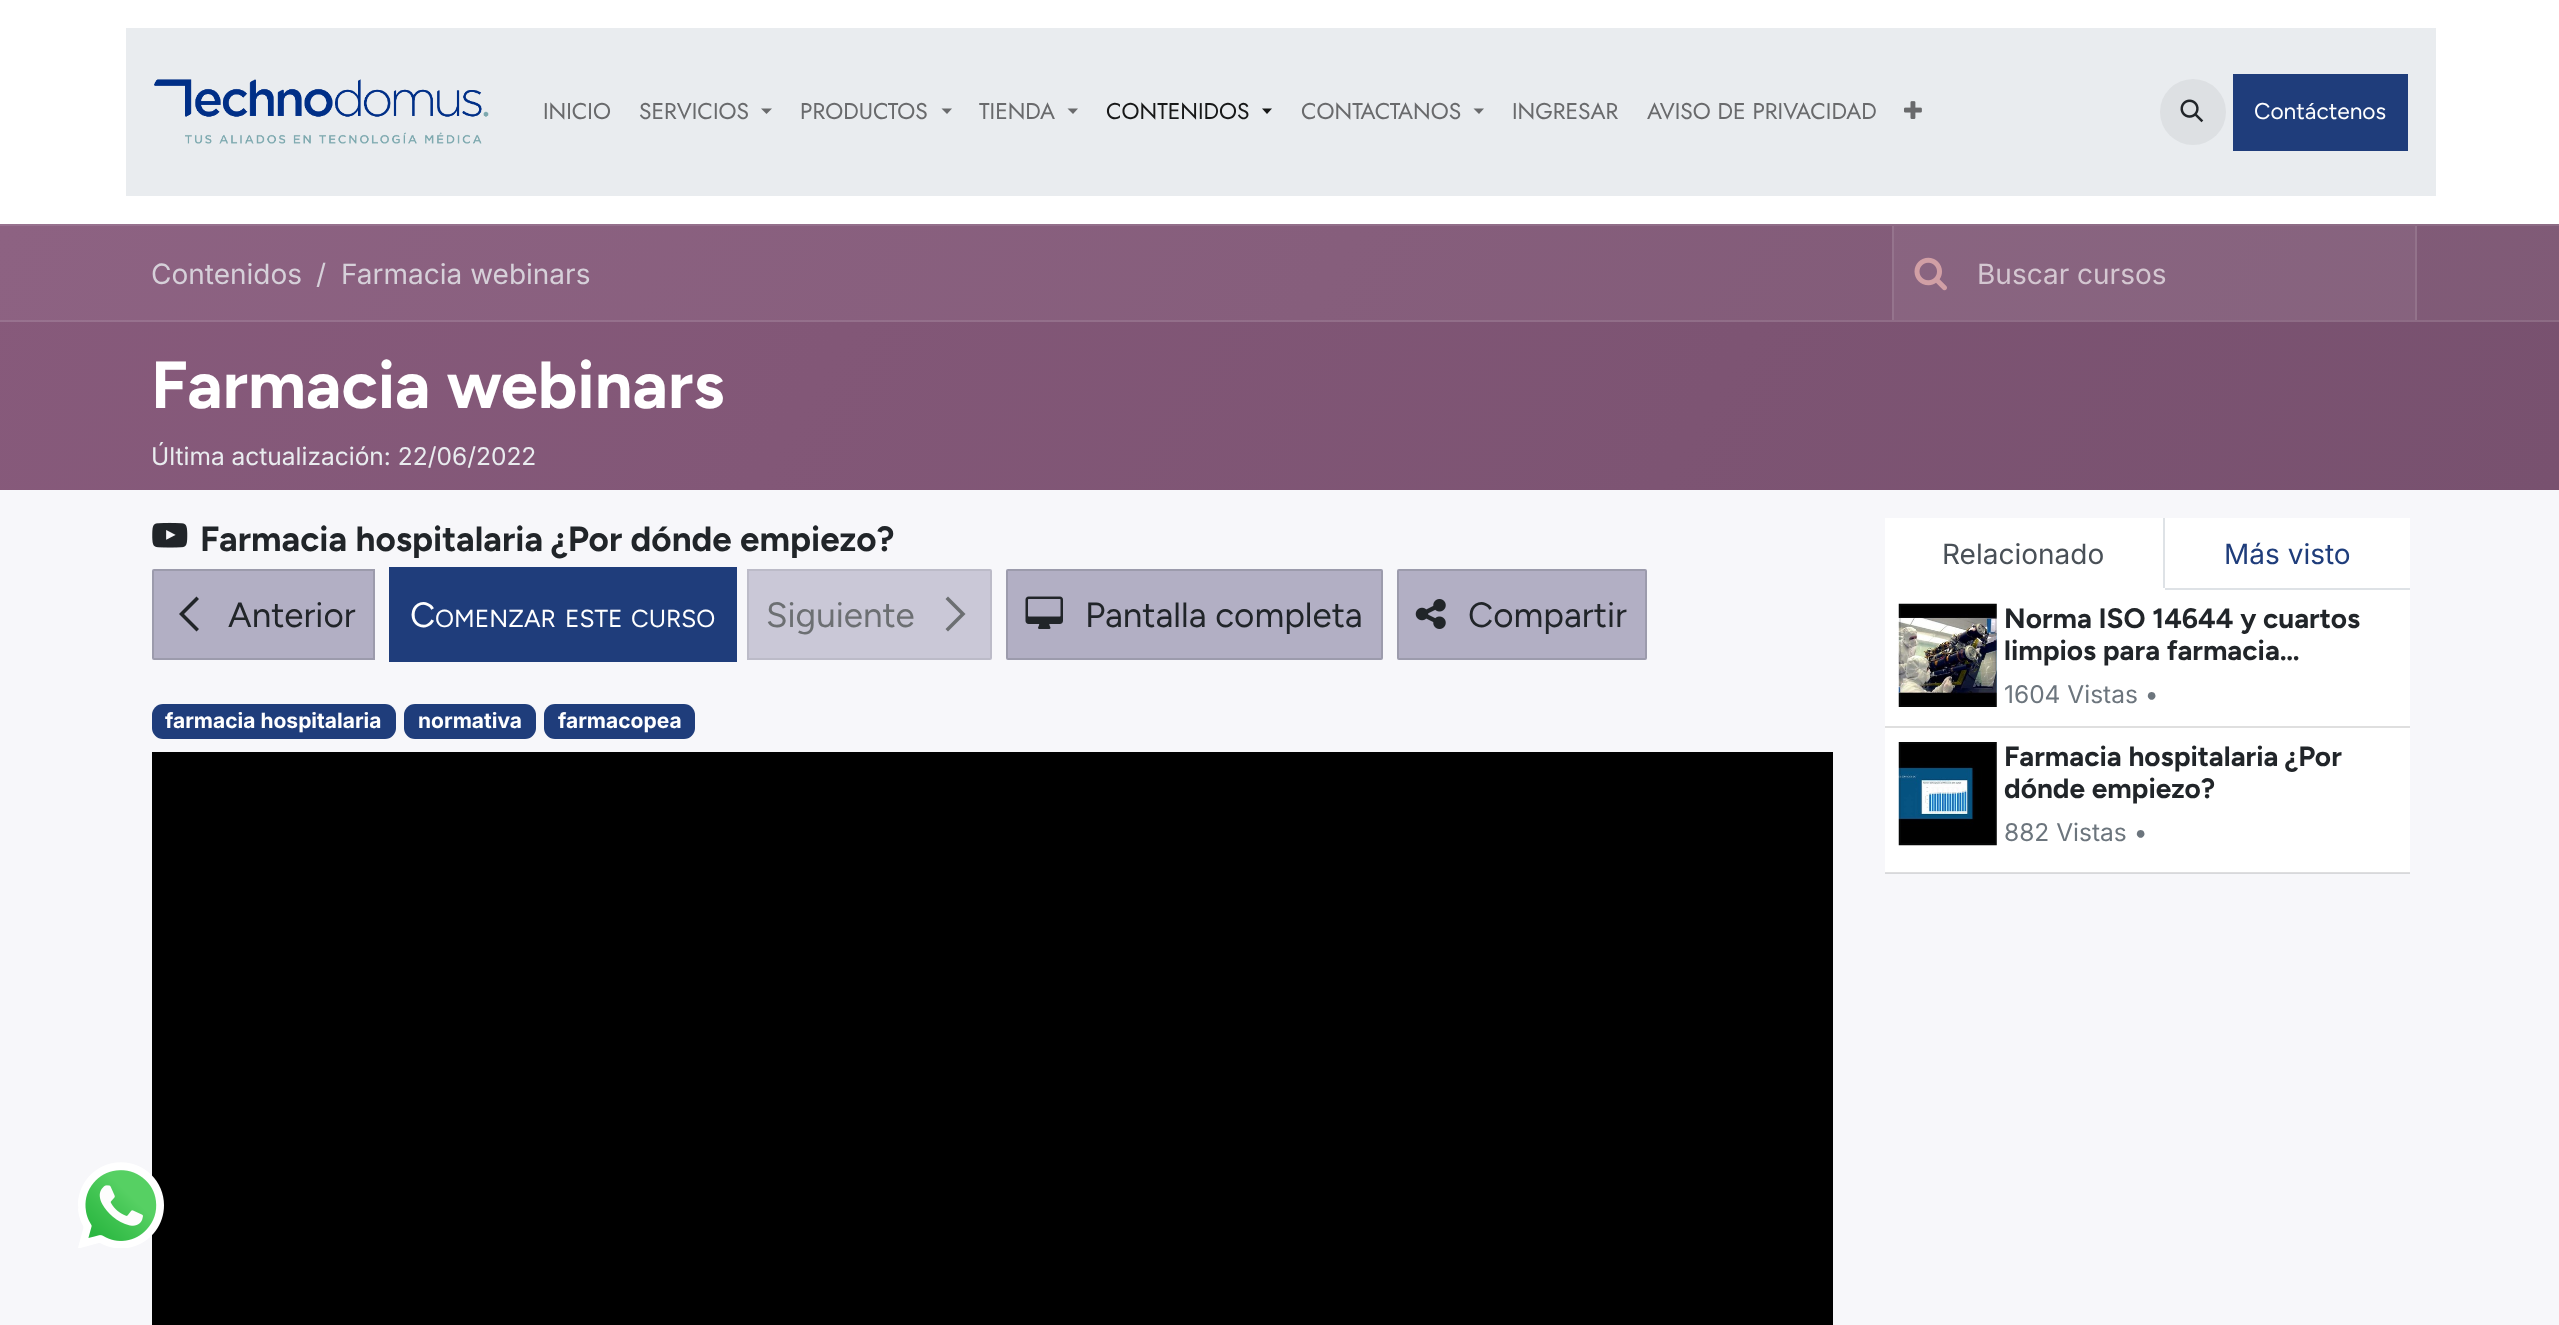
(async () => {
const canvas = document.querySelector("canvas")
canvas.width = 2559
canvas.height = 1325
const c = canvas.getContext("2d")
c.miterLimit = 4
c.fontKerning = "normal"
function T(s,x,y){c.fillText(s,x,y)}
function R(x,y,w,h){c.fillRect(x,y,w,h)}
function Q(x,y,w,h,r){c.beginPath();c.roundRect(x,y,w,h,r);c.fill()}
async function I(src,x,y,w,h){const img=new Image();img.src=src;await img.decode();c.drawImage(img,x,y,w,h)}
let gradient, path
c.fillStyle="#fff"
R(0,0,2559,1325)
c.fillStyle="#e9ecef"
R(126,28,2310,168)
await I("1.png",154,79,335,65)
c.font="22.75px Jost"
c.fillStyle="#696a6c"
T("INICIO",543,119)
T("SERVICIOS",639,119)
path = new Path2D("M761 108.5h11l-5.5 5.5z")
c.fill(path)
T("PRODUCTOS",800,119)
path = new Path2D("M941.5 108.5h10.5l-5 5.5z")
c.fill(path)
T("TIENDA",979,119)
path = new Path2D("M1067.5 108.5h10.5l-5 5.5z")
c.fill(path)
c.fillStyle="#171818"
T("CONTENIDOS",1106,119)
path = new Path2D("M1262 108.5h10l-5 5.5z")
c.fill(path)
c.fillStyle="#696a6c"
T("CONTACTANOS",1301,119)
path = new Path2D("M1473.5 108.5h10.5l-5 5.5z")
c.fill(path)
T("INGRESAR",1512,119)
T("AVISO DE PRIVACIDAD",1647,119)
await I("2.png",1904,101,18,18)
c.fillStyle="#dde0e3"
c.beginPath()
c.arc(2193,112,33,0,7)
c.fill()
await I("3.png",2180,99,24,24)
c.fillStyle="#1f3d7b"
c.beginPath()
c.rect(2235,76,171,73)
c.fill()
c.strokeStyle="#1f3d7b"
c.lineWidth=4
c.stroke()
c.font="22.75px Figtree"
c.fillStyle="#fff"
T("Contáctenos",2254,119)
c.fillStyle="#f7f7fa"
R(0,490,2559,835)
c.fillStyle="#d7d8db"
R(1885,873,525,1)
gradient = c.createLinearGradient(262,-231,2298,945)
gradient.addColorStop(0,"#875a7b")
gradient.addColorStop(1,"#78516f")
c.fillStyle = gradient
R(0,322,2559,168)
gradient = c.createLinearGradient(262,-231,2298,945)
gradient.addColorStop(0,"#8d6282")
gradient.addColorStop(1,"#7f5a76")
c.fillStyle = gradient
R(0,226,2559,94)
gradient = c.createLinearGradient(262,-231,2298,945)
gradient.addColorStop(0,"#936a88")
gradient.addColorStop(1,"#85627d")
c.fillStyle = gradient
R(1894,226,521,94)
gradient = c.createLinearGradient(262,-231,2298,945)
gradient.addColorStop(0,"#98728f")
gradient.addColorStop(1,"#8c6b84")
c.fillStyle = gradient
R(0,320,2559,2)
R(0,224,2559,2)
c.font="28px Inter"
c.fillStyle="#d6d0d9"
T("Contenidos",151,284)
T("/",316,284)
T("Farmacia webinars",341,284)
c.fillStyle="#93738b"
R(2415,226,2,94)
c.fillStyle="#95748d"
R(1892,226,2,94)
await I("4.png",1914,257,33,34)
c.fillStyle="#d4c7d1"
T("Buscar cursos",1977,284)
c.font="bold 66.5px Figtree"
c.fillStyle="#fff"
T("Farmacia webinars",151,408)
c.font="24.5px Inter"
c.fillStyle="#e9ecef"
T("Última actualización: 22/06/2022",151,465)
await I("5.png",152,522,36,26)
c.font="bold 35px Figtree"
c.fillStyle="#212529"
T("Farmacia hospitalaria ¿Por dónde empiezo?",200,551)
c.fillStyle="#b2afc4"
c.beginPath()
c.roundRect(152,569,223,91,[2,0,0,2])
c.fill()
c.beginPath()
c.roundRect(153,570,221,89,[1,0,0,1])
c.strokeStyle="#21252926"
c.lineWidth=2
c.stroke()
c.fillStyle="#212529"
path = new Path2D("M179 614l17.5-17.5l2.5 2.5l-15 15l15 15l-2.5 2.5z")
c.fill(path)
c.font="35px Figtree"
T("Anterior",228,627)
c.fillStyle="#1f3d7b"
c.beginPath()
c.rect(391,569,344,91)
c.fill()
c.strokeStyle="#1f3d7b"
c.lineWidth=4
c.stroke()
c.fillStyle="#fff"
T("C",410,627)
c.font="24.5px Figtree"
T("OMENZAR",435,627)
T("ESTE",565,627)
T("CURSO",631,627)
c.fillStyle="#cac8d7"
c.beginPath()
c.roundRect(747,569,245,91,[0,2,2,0])
c.fill()
c.beginPath()
c.roundRect(748,570,243,89,[0,1,1,0])
c.strokeStyle="#6c6f7226"
c.lineWidth=2
c.stroke()
c.font="35px Figtree"
c.fillStyle="#6c6f72"
T("Siguiente",766,627)
path = new Path2D("M965.5 614l-17.5 17.5l-2.5-2.5l15-15l-15-15l2.5-2.5z")
c.fill(path)
c.fillStyle="#b2afc4"
Q(1006,569,377,91,2)
c.beginPath()
c.roundRect(1007,570,375,89,1)
c.strokeStyle="#21252926"
c.stroke()
await I("6.png",1025,596,38,33)
c.fillStyle="#212529"
T("Pantalla completa",1085,627)
c.fillStyle="#b2afc4"
Q(1397,569,250,91,2)
c.beginPath()
c.roundRect(1398,570,248,89,1)
c.stroke()
await I("7.png",1415,599,31,30)
c.fillStyle="#212529"
T("Compartir",1468,627)
c.fillStyle="#1f3d7b"
Q(152,704,244,35,11)
c.font="bold 21px Inter"
c.fillStyle="#fff"
T("farmacia hospitalaria",165,728)
c.fillStyle="#1f3d7b"
Q(404,704,132,35,11)
c.fillStyle="#fff"
T("normativa",418,728)
c.fillStyle="#1f3d7b"
Q(544,704,151,35,11)
c.fillStyle="#fff"
T("farmacopea",558,728)
c.fillStyle="#000"
R(152,752,1681,573)
c.fillStyle="#fff"
R(1885,518,525,354)
c.fillStyle="#dededf"
R(1885,872,525,1)
c.fillStyle="#dee2e6"
R(2165,588,245,2)
R(2163,518,2,72)
c.fillStyle="#fff"
R(2163,588,2,2)
c.font="28px Inter"
c.fillStyle="#495057"
T("Relacionado",1942,564)
c.fillStyle="#1f3d7b"
T("Más visto",2224,564)
c.fillStyle="#dfdfdf"
R(1885,726,525,2)
await I("8.png",1898,603,99,104)
c.strokeRect(1900,605,96,101)
c.font="bold 28px Figtree"
c.fillStyle="#212529"
T("Norma ISO 14644 y cuartos",2004,628)
T("limpios para farmacia…",2004,660)
c.font="24.5px Inter"
c.fillStyle="#6c757d"
T("1604 Vistas •",2004,703)
await I("9.png",1898,742,99,104)
c.strokeRect(1900,743,96,101)
c.font="bold 28px Figtree"
c.fillStyle="#212529"
T("Farmacia hospitalaria ¿Por",2004,766)
T("dónde empiezo?",2004,798)
c.font="24.5px Inter"
c.fillStyle="#6c757d"
T("882 Vistas •",2004,841)
await I("10.png",78,1162,86,86)
})()
